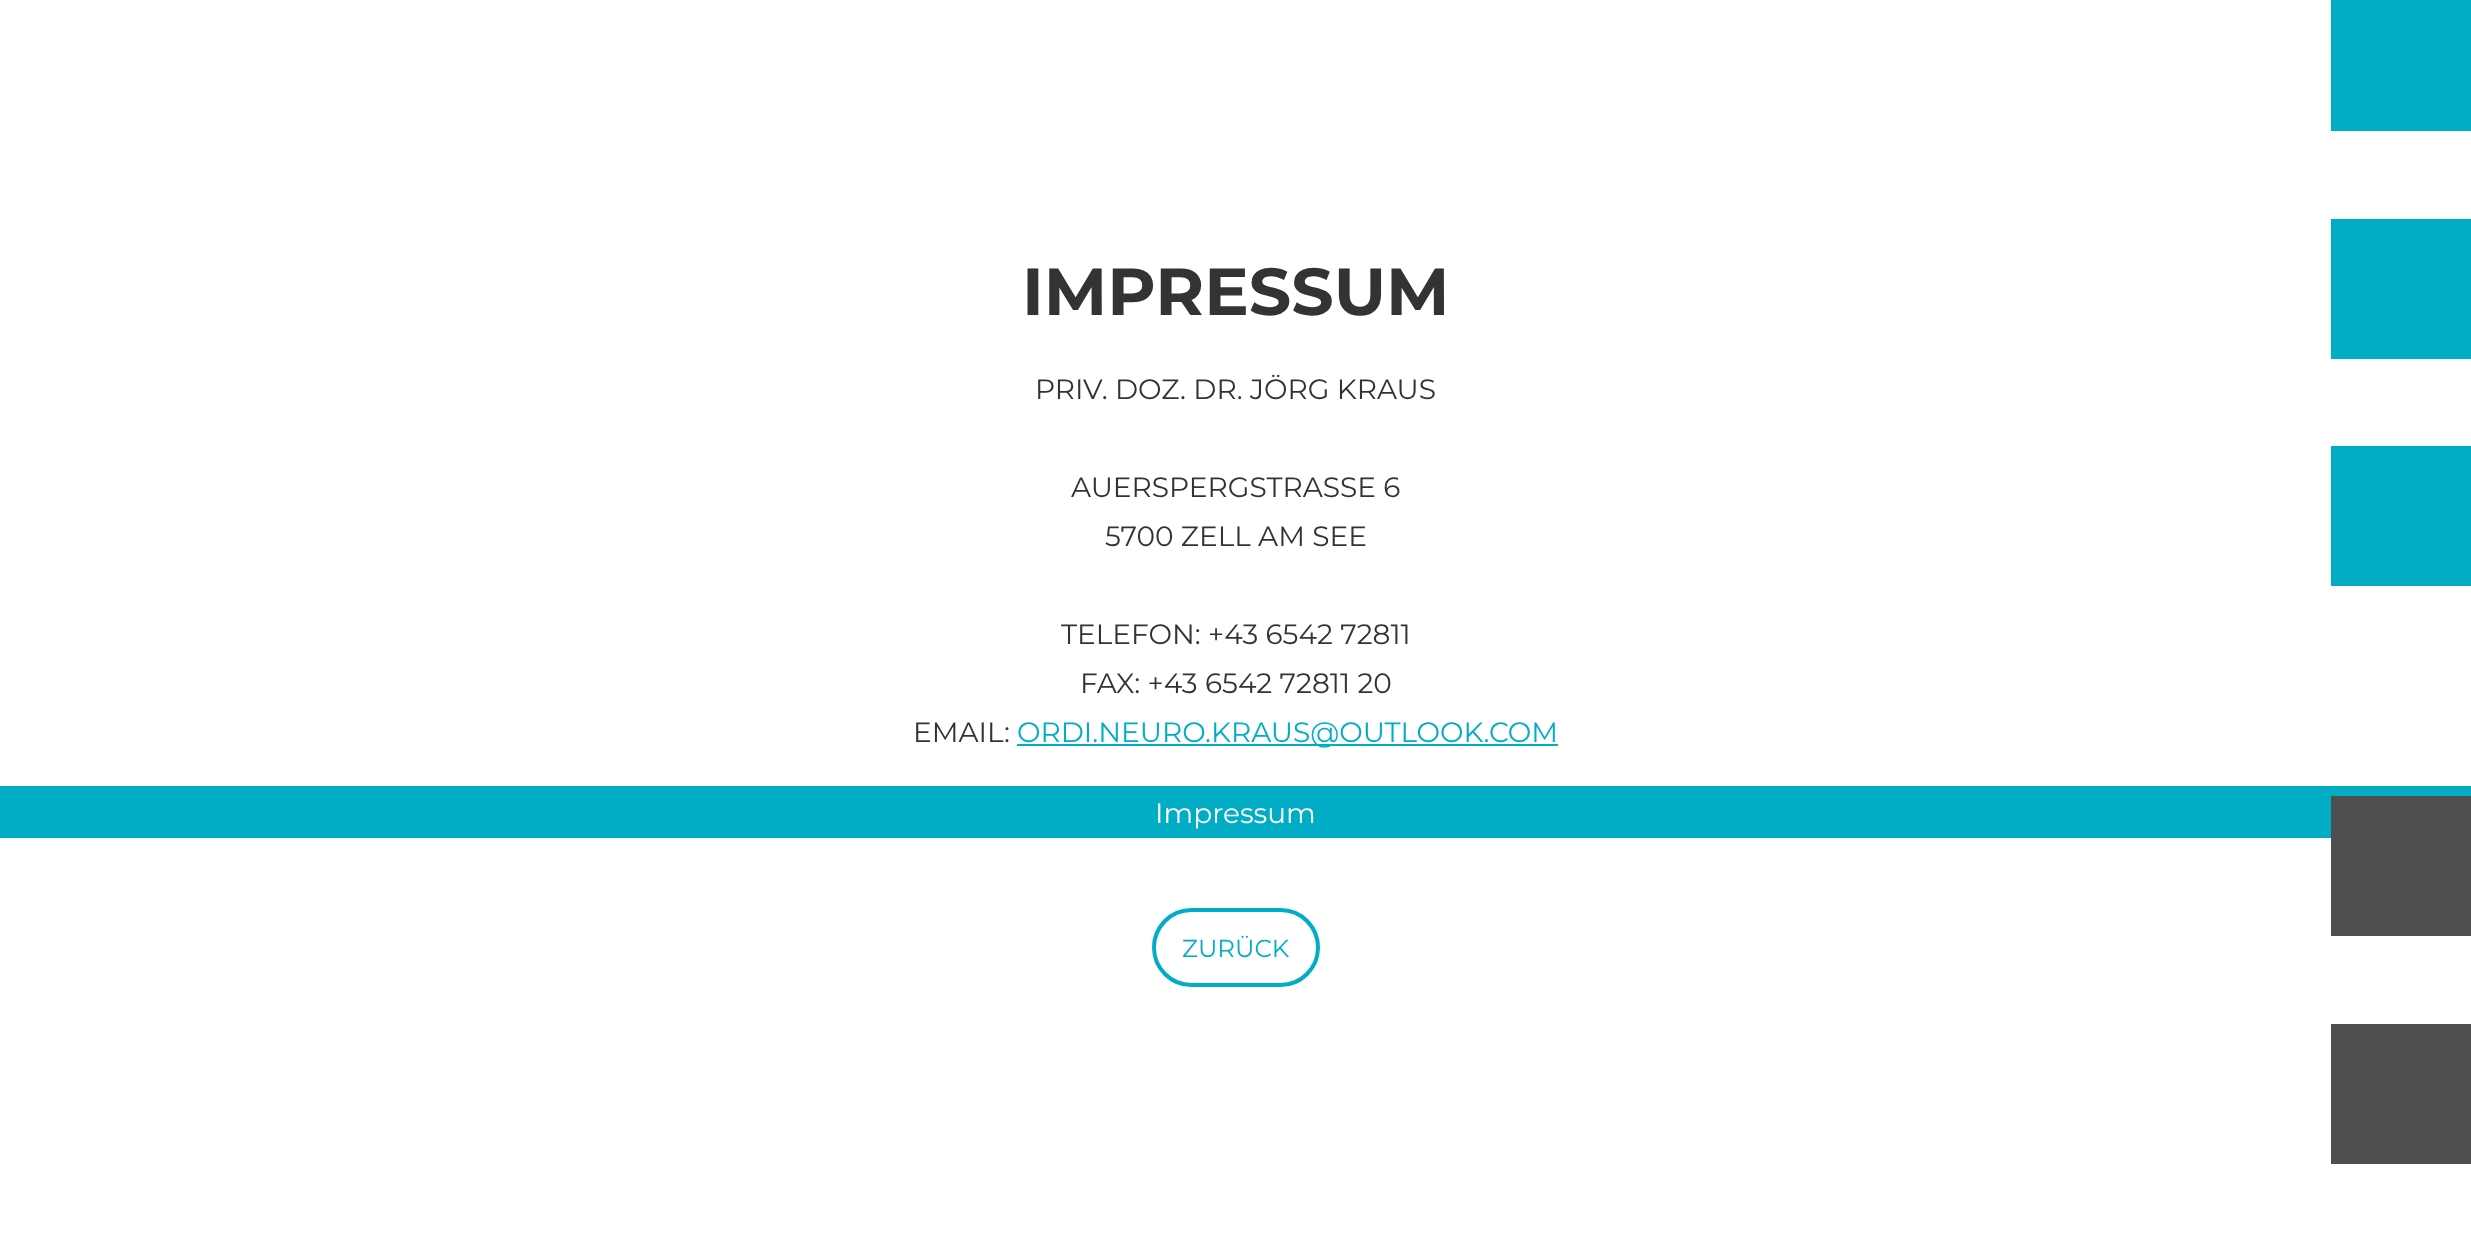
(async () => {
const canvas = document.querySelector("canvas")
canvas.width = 2471
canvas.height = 1240
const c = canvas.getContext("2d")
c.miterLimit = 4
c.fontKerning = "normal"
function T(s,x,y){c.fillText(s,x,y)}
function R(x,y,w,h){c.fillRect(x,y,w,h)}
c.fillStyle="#fff"
R(0,0,2471,1240)
c.font="bold 66.5px Montserrat"
c.fillStyle="#333"
T("IMPRESSUM",1022,315)
c.font="28px Montserrat"
T("PRIV. DOZ. DR. JÖRG KRAUS",1035,399)
T("AUERSPERGSTRASSE 6",1071,497)
T("5700 ZELL AM SEE",1105,546)
T("TELEFON: +43 6542 72811",1061,644)
T("FAX: +43 6542 72811 20",1080,693)
T("EMAIL:",913,742)
c.fillStyle="#00adc5"
R(1017,744,541,2)
T("ORDI.NEURO.KRAUS@OUTLOOK.COM",1017,742)
R(2331,0,140,131)
R(2331,219,140,140)
R(2331,446,140,140)
R(0,786,2471,52)
c.fillStyle="#4f4f4f"
R(2331,796,140,140)
R(2331,1024,140,140)
c.fillStyle="#fff"
T("Impressum",1155,823)
c.beginPath()
c.roundRect(1154,910,164,75,37.5)
c.strokeStyle="#00adc5"
c.lineWidth=4
c.stroke()
c.font="24.5px Montserrat"
c.fillStyle="#00adc5"
T("ZURÜCK",1182,957)
})()
